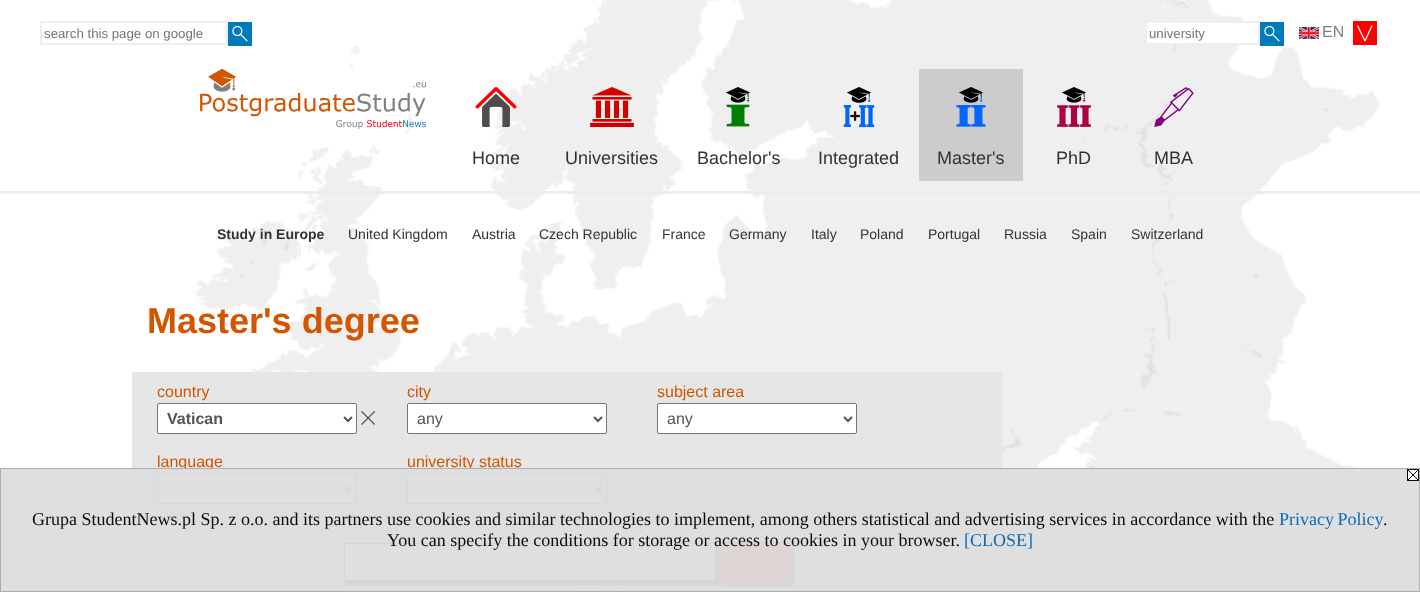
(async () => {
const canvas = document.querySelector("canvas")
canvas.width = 1420
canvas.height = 592
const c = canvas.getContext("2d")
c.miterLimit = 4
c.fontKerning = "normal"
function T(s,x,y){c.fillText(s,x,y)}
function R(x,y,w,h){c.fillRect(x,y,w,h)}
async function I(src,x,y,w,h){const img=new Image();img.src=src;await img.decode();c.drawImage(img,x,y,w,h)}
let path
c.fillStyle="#fff"
R(0,0,1420,592)
await I("1.png",94,0,1291,592)
c.strokeStyle="#efefef"
c.lineWidth=2
c.strokeRect(41,22,186,22)
c.font="13.25px Liberation Sans"
c.fillStyle="#757575"
T("search this page on google",44,38)
c.fillStyle="#007bba"
R(228,22,24,24)
await I("2.png",232,26,16,16)
c.fillStyle="#fff"
R(1147,23,99,20)
c.strokeRect(1146,22,113,22)
c.fillStyle="#757575"
T("university",1149,38)
c.fillStyle="#007bba"
R(1260,22,24,24)
await I("2.png",1264,26,16,16)
c.fillStyle="#f00"
R(1353,21,24,24)
await I("3.png",1299,27,20,12)
c.font="16px Liberation Sans"
c.fillStyle="#808080"
T("EN",1322,37)
path = new Path2D("M1357.5 25.5l7.5 15.5m7-15.5l-7 15.5")
c.strokeStyle="#fff"
c.lineWidth=1.3
c.stroke(path)
await I("4.png",200,69,226,60)
await I("5.png",475,87,42,40)
c.font="18px Liberation Sans"
c.fillStyle="#333"
T("Home",472,164)
await I("6.png",590,87,44,40)
T("Universities",565,164)
await I("7.png",726,87,24,40)
T("Bachelor's",697,164)
await I("8.png",843,87,32,41)
T("Integrated",818,164)
c.fillStyle="#ccc"
R(919,69,104,112)
await I("9.png",956,87,30,40)
c.fillStyle="#333"
T("Master's",937,164)
await I("10.png",1057,87,34,40)
T("PhD",1056,164)
await I("11.png",1154,87,40,40)
T("MBA",1154,164)
c.fillStyle="#ececec"
R(0,191,1420,3)
c.font="bold 14px Liberation Sans"
c.fillStyle="#333"
T("Study in Europe",217,239)
c.font="14px Liberation Sans"
T("United Kingdom",348,239)
T("Austria",472,239)
T("Czech Republic",539,239)
T("France",662,239)
T("Germany",729,239)
T("Italy",811,239)
T("Poland",860,239)
T("Portugal",928,239)
T("Russia",1004,239)
T("Spain",1071,239)
T("Switzerland",1131,239)
c.font="bold 36px Liberation Sans"
c.fillStyle="#d45500"
T("Master's degree",147,333)
c.fillStyle="#e6e6e6"
R(132,372,870,160)
c.font="16px Liberation Sans"
c.fillStyle="#d45500"
T("country",157,397)
c.fillStyle="#fff"
c.beginPath()
c.roundRect(157.5,403.5,199,30,1.5)
c.fill()
c.strokeStyle="#767676"
c.lineWidth=1
c.stroke()
path = new Path2D("M344 417l4 4l4-4")
c.strokeStyle="#555"
c.lineWidth=2
c.stroke(path)
c.font="bold 16px Liberation Sans"
c.fillStyle="#555"
T("Vatican",167,424)
await I("12.png",361,411,14,14)
c.font="16px Liberation Sans"
c.fillStyle="#d45500"
T("city",407,397)
c.fillStyle="#fff"
c.beginPath()
c.roundRect(407.5,403.5,199,30,1.5)
c.fill()
c.strokeStyle="#767676"
c.lineWidth=1
c.stroke()
path = new Path2D("M594 417l4 4l4-4")
c.strokeStyle="#555"
c.lineWidth=2
c.stroke(path)
c.fillStyle="#555"
T("any",417,424)
c.fillStyle="#d45500"
T("subject area",657,397)
c.fillStyle="#fff"
c.beginPath()
c.roundRect(657.5,403.5,199,30,1.5)
c.fill()
c.strokeStyle="#767676"
c.lineWidth=1
c.stroke()
path = new Path2D("M844 417l4 4l4-4")
c.strokeStyle="#555"
c.lineWidth=2
c.stroke(path)
c.fillStyle="#555"
T("any",667,424)
c.fillStyle="#d45500"
T("language",157,467)
c.fillStyle="#fff"
c.beginPath()
c.roundRect(157.5,473.5,199,30,1.5)
c.fill()
c.strokeStyle="#767676"
c.lineWidth=1
c.stroke()
path = new Path2D("M344 487l4 4l4-4")
c.strokeStyle="#555"
c.lineWidth=2
c.stroke(path)
c.fillStyle="#d45500"
T("university status",407,467)
c.fillStyle="#fff"
c.beginPath()
c.roundRect(407.5,473.5,199,30,1.5)
c.fill()
c.strokeStyle="#767676"
c.lineWidth=1
c.stroke()
path = new Path2D("M594 487l4 4l4-4")
c.strokeStyle="#555"
c.lineWidth=2
c.stroke(path)
c.fillStyle="#555"
c.filter="blur(1px)"
c.beginPath()
c.rect(344,543,376,42)
c.fill()
c.filter="none"
c.fillStyle="#fff"
c.beginPath()
c.rect(344.5,543.5,371,37)
c.fill()
c.lineWidth=1
c.stroke()
c.fillStyle="#555"
c.filter="blur(1px)"
c.beginPath()
c.rect(721,542,73,44)
c.fill()
c.filter="none"
c.fillStyle="#d45500"
R(721,542,69,40)
c.fillStyle="#ddddddf2"
R(0,468,1420,124)
c.strokeStyle="#aaaaaaf2"
c.strokeRect(.5,468.5,1419,123)
await I("13.png",1407,469,12,12)
c.font="18px Liberation Serif"
c.fillStyle="#0b0b0b"
T("Grupa StudentNews.pl Sp. z o.o. and its partners use cookies and similar technologies to implement, among others statistical and advertising services in accordance with the",32,525)
c.wordSpacing="-1px"
c.fillStyle="#0d6ab4"
T("Privacy Policy",1279,525)
c.wordSpacing="0px"
c.fillStyle="#0b0b0b"
T(".",1383,525)
T("You can specify the conditions for storage or access to cookies in your browser.",387,546)
c.fillStyle="#0d6ab4"
T("[CLOSE]",964,546)
})()
